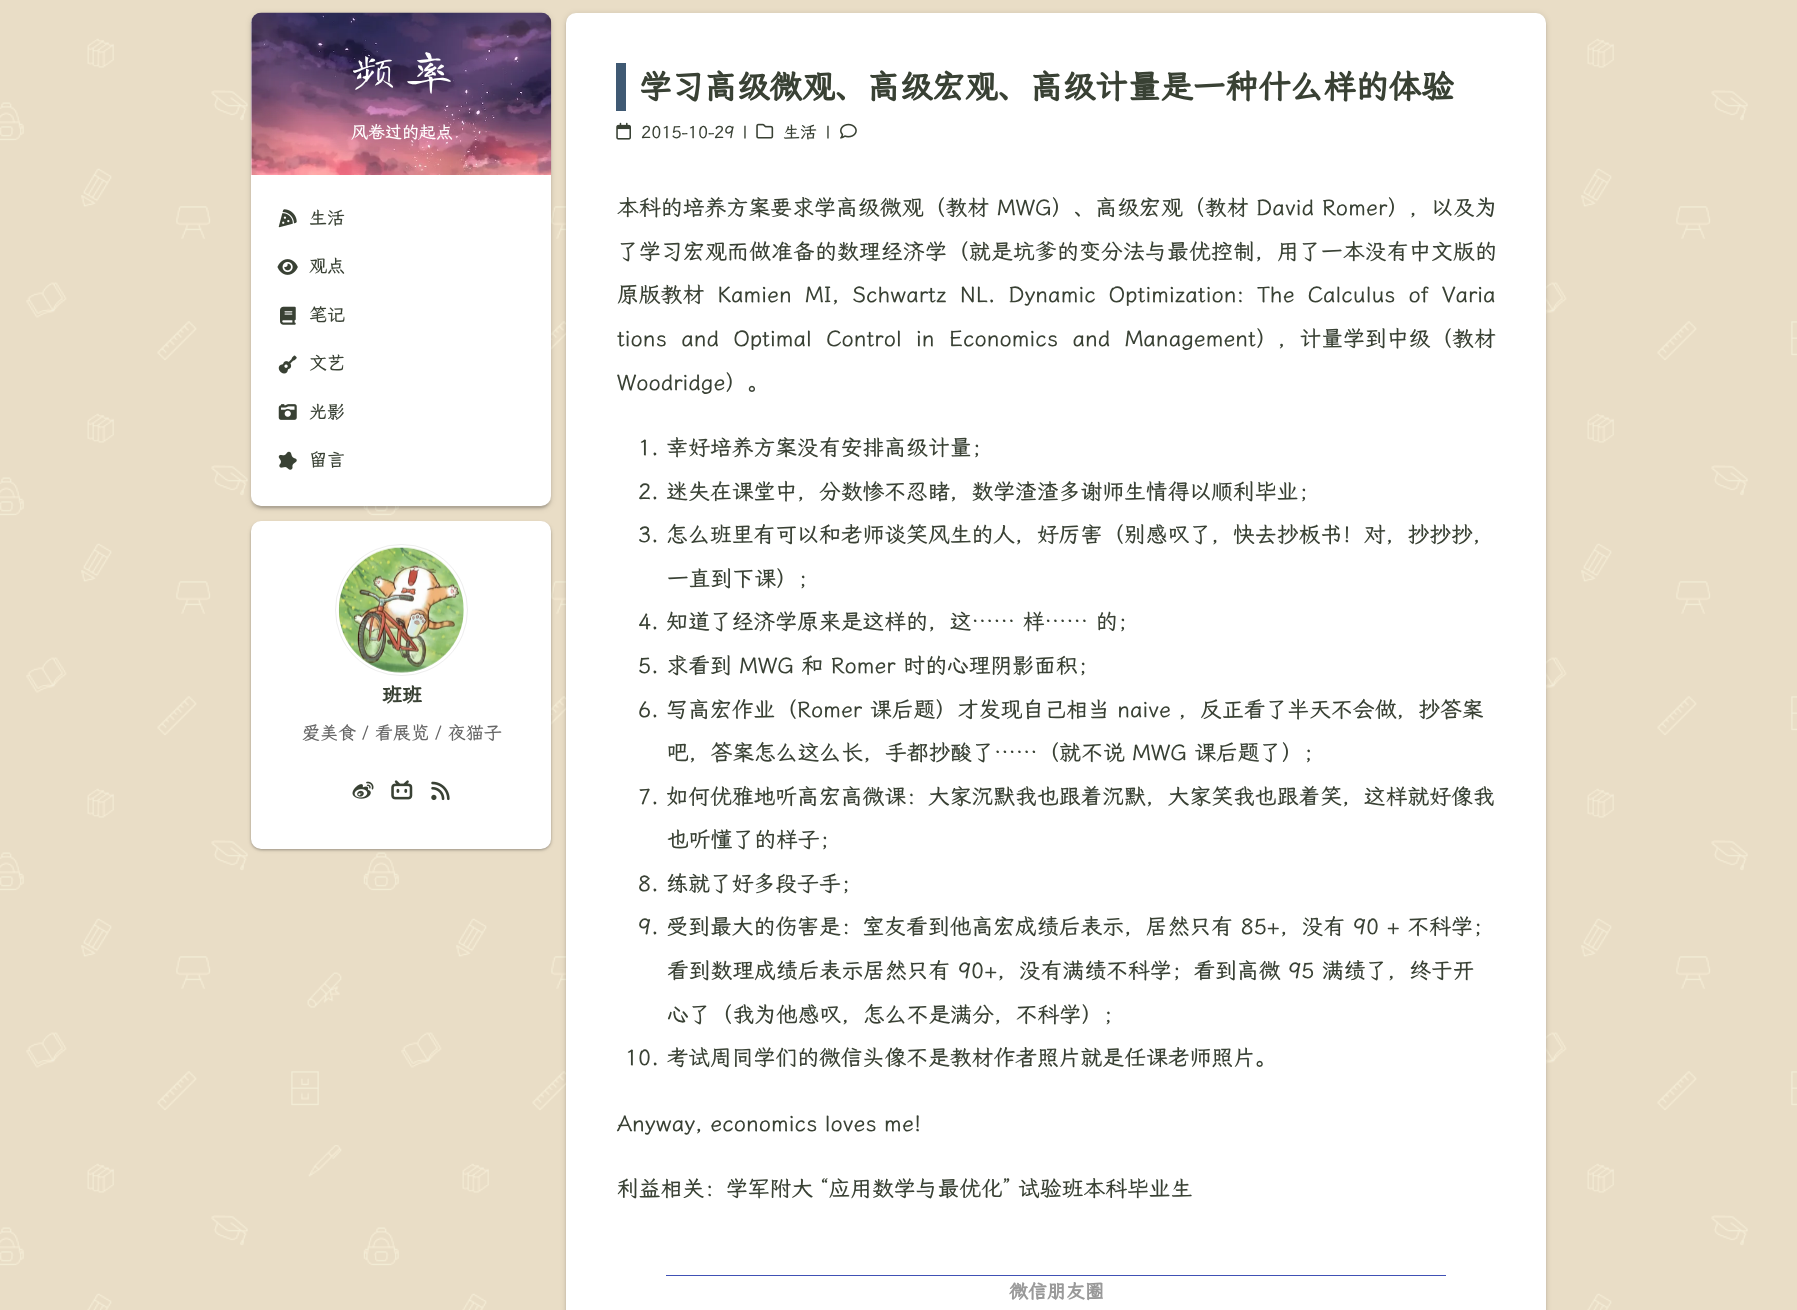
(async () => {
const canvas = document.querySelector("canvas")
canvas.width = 1797
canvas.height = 1310
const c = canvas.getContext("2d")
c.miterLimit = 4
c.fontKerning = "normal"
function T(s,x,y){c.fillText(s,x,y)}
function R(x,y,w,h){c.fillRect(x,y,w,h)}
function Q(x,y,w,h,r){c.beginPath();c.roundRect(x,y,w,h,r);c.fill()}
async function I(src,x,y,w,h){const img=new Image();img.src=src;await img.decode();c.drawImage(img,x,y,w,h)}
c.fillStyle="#fff"
R(0,0,1797,1310)
await I("1.png",0,0,1797,1310)
c.fillStyle="#0000001f"
c.filter="blur(3px)"
c.beginPath()
c.roundRect(251,14,300,494,10)
c.fill()
c.filter="none"
c.fillStyle="#0000000f"
c.filter="blur(0.5px)"
c.beginPath()
c.roundRect(254,19,295,489,8)
c.fill()
c.filter="none"
c.fillStyle="#0000001f"
c.filter="blur(1px)"
c.beginPath()
c.roundRect(251,15,300,494,10)
c.fill()
c.filter="none"
c.fillStyle="#fff"
Q(251,13,300,493,10)
await I("2.png",251,12,301,163)
c.letterSpacing="12px"
c.font="44px Long Cang"
T("频率",351,86)
c.letterSpacing="0px"
c.font="17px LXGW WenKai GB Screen"
T("风卷过的起点",351,138)
await I("3.png",278,209,19,19)
c.font="18px LXGW WenKai GB Screen"
c.fillStyle="#394134"
T("生活",309,224)
await I("4.png",277,259,21,16)
T("观点",309,272)
await I("5.png",280,306,16,19)
T("笔记",309,321)
await I("6.png",278,355,19,19)
T("文艺",309,369)
await I("7.png",278,404,19,16)
T("光影",309,418)
await I("8.png",278,451,19,19)
T("留言",309,466)
c.fillStyle="#0000003d"
c.filter="blur(1px)"
c.beginPath()
c.roundRect(251,523,300,327,10)
c.fill()
c.filter="none"
c.fillStyle="#0000001f"
c.filter="blur(2px)"
c.beginPath()
c.roundRect(251,523,300,327,10)
c.fill()
c.filter="none"
c.fillStyle="#fff"
Q(251,521,300,328,10)
c.beginPath()
c.roundRect(335.5,544.5,132,131,65.5)
c.strokeStyle="#eee"
c.stroke()
await I("9.png",338,547,126,126)
c.font="bold 20px LXGW WenKai GB Screen"
c.fillStyle="#394134"
T("班班",382,702)
c.font="18px LXGW WenKai GB Screen"
c.fillStyle="#666"
T("爱美食 / 看展览 / 夜猫子",302,739)
await I("10.png",352,781,22,18)
await I("11.png",391,780,22,20)
await I("12.png",431,781,19,20)
c.fillStyle="#0000001f"
c.filter="blur(3px)"
c.beginPath()
c.roundRect(566,14,980,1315,10)
c.fill()
c.filter="none"
c.filter="blur(1px)"
c.beginPath()
c.roundRect(566,15,980,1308,10)
c.fill()
c.filter="none"
c.fillStyle="#fff"
Q(566,13,980,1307,10)
c.fillStyle="#3f5973"
R(616,63,10,48)
c.font="bold 32.6px LXGW WenKai GB Screen"
c.fillStyle="#394134"
T("学习高级微观、高级宏观、高级计量是一种什么样的体验",639,98)
await I("13.png",616,122,15,18)
c.font="17px LXGW WenKai GB Screen"
T("2015-10-29",641,138)
T("|",742,138)
await I("14.png",756,123,18,16)
T("生活",783,138)
T("|",825,138)
await I("15.png",840,123,17,16)
c.letterSpacing="0.1px"
c.font="21.8px LXGW WenKai GB Screen"
T("本科的培养方案要求学高级微观（教材 MWG）、高级宏观（教材 David Romer），以及为",617,215)
c.letterSpacing="0.2px"
T("了学习宏观而做准备的数理经济学（就是坑爹的变分法与最优控制，用了一本没有中文版的",617,259)
c.letterSpacing="0px"
c.wordSpacing="5.5px"
T("原版教材 Kamien MI, Schwartz NL. Dynamic Optimization: The Calculus of Varia",617,302)
c.wordSpacing="6.75px"
T("tions and Optimal Control in Economics and Management），计量学到中级（教材",617,346)
c.wordSpacing="0px"
T("Woodridge）。",617,390)
T("1. 幸好培养方案没有安排高级计量；",638,455)
T("2. 迷失在课堂中，分数惨不忍睹，数学渣渣多谢师生情得以顺利毕业；",638,499)
T("3. 怎么班里有可以和老师谈笑风生的人，好厉害（别感叹了，快去抄板书！对，抄抄抄，",638,542)
T("一直到下课）；",667,586)
T("4. 知道了经济学原来是这样的，这…… 样…… 的；",638,629)
T("5. 求看到 MWG 和 Romer 时的心理阴影面积；",638,673)
T("6. 写高宏作业（Romer 课后题）才发现自己相当 naive ，反正看了半天不会做，抄答案",638,717)
T("吧，答案怎么这么长，手都抄酸了……（就不说 MWG 课后题了）；",667,760)
T("7. 如何优雅地听高宏高微课：大家沉默我也跟着沉默，大家笑我也跟着笑，这样就好像我",638,804)
T("也听懂了的样子；",667,847)
T("8. 练就了好多段子手；",638,891)
T("9. 受到最大的伤害是：室友看到他高宏成绩后表示，居然只有 85+，没有 90 + 不科学；",638,934)
T("看到数理成绩后表示居然只有 90+，没有满绩不科学；看到高微 95 满绩了，终于开",667,978)
T("心了（我为他感叹，怎么不是满分，不科学）；",667,1022)
T("10. 考试周同学们的微信头像不是教材作者照片就是任课老师照片。",625,1065)
T("Anyway, economics loves me!",617,1131)
T("利益相关：学军附大 “应用数学与最优化” 试验班本科毕业生",617,1196)
c.fillStyle="#4051b5"
R(666,1275,780,1)
c.font="bold 19px LXGW WenKai GB Screen"
c.fillStyle="#999"
T("微信朋友圈",1009,1298)
})()
